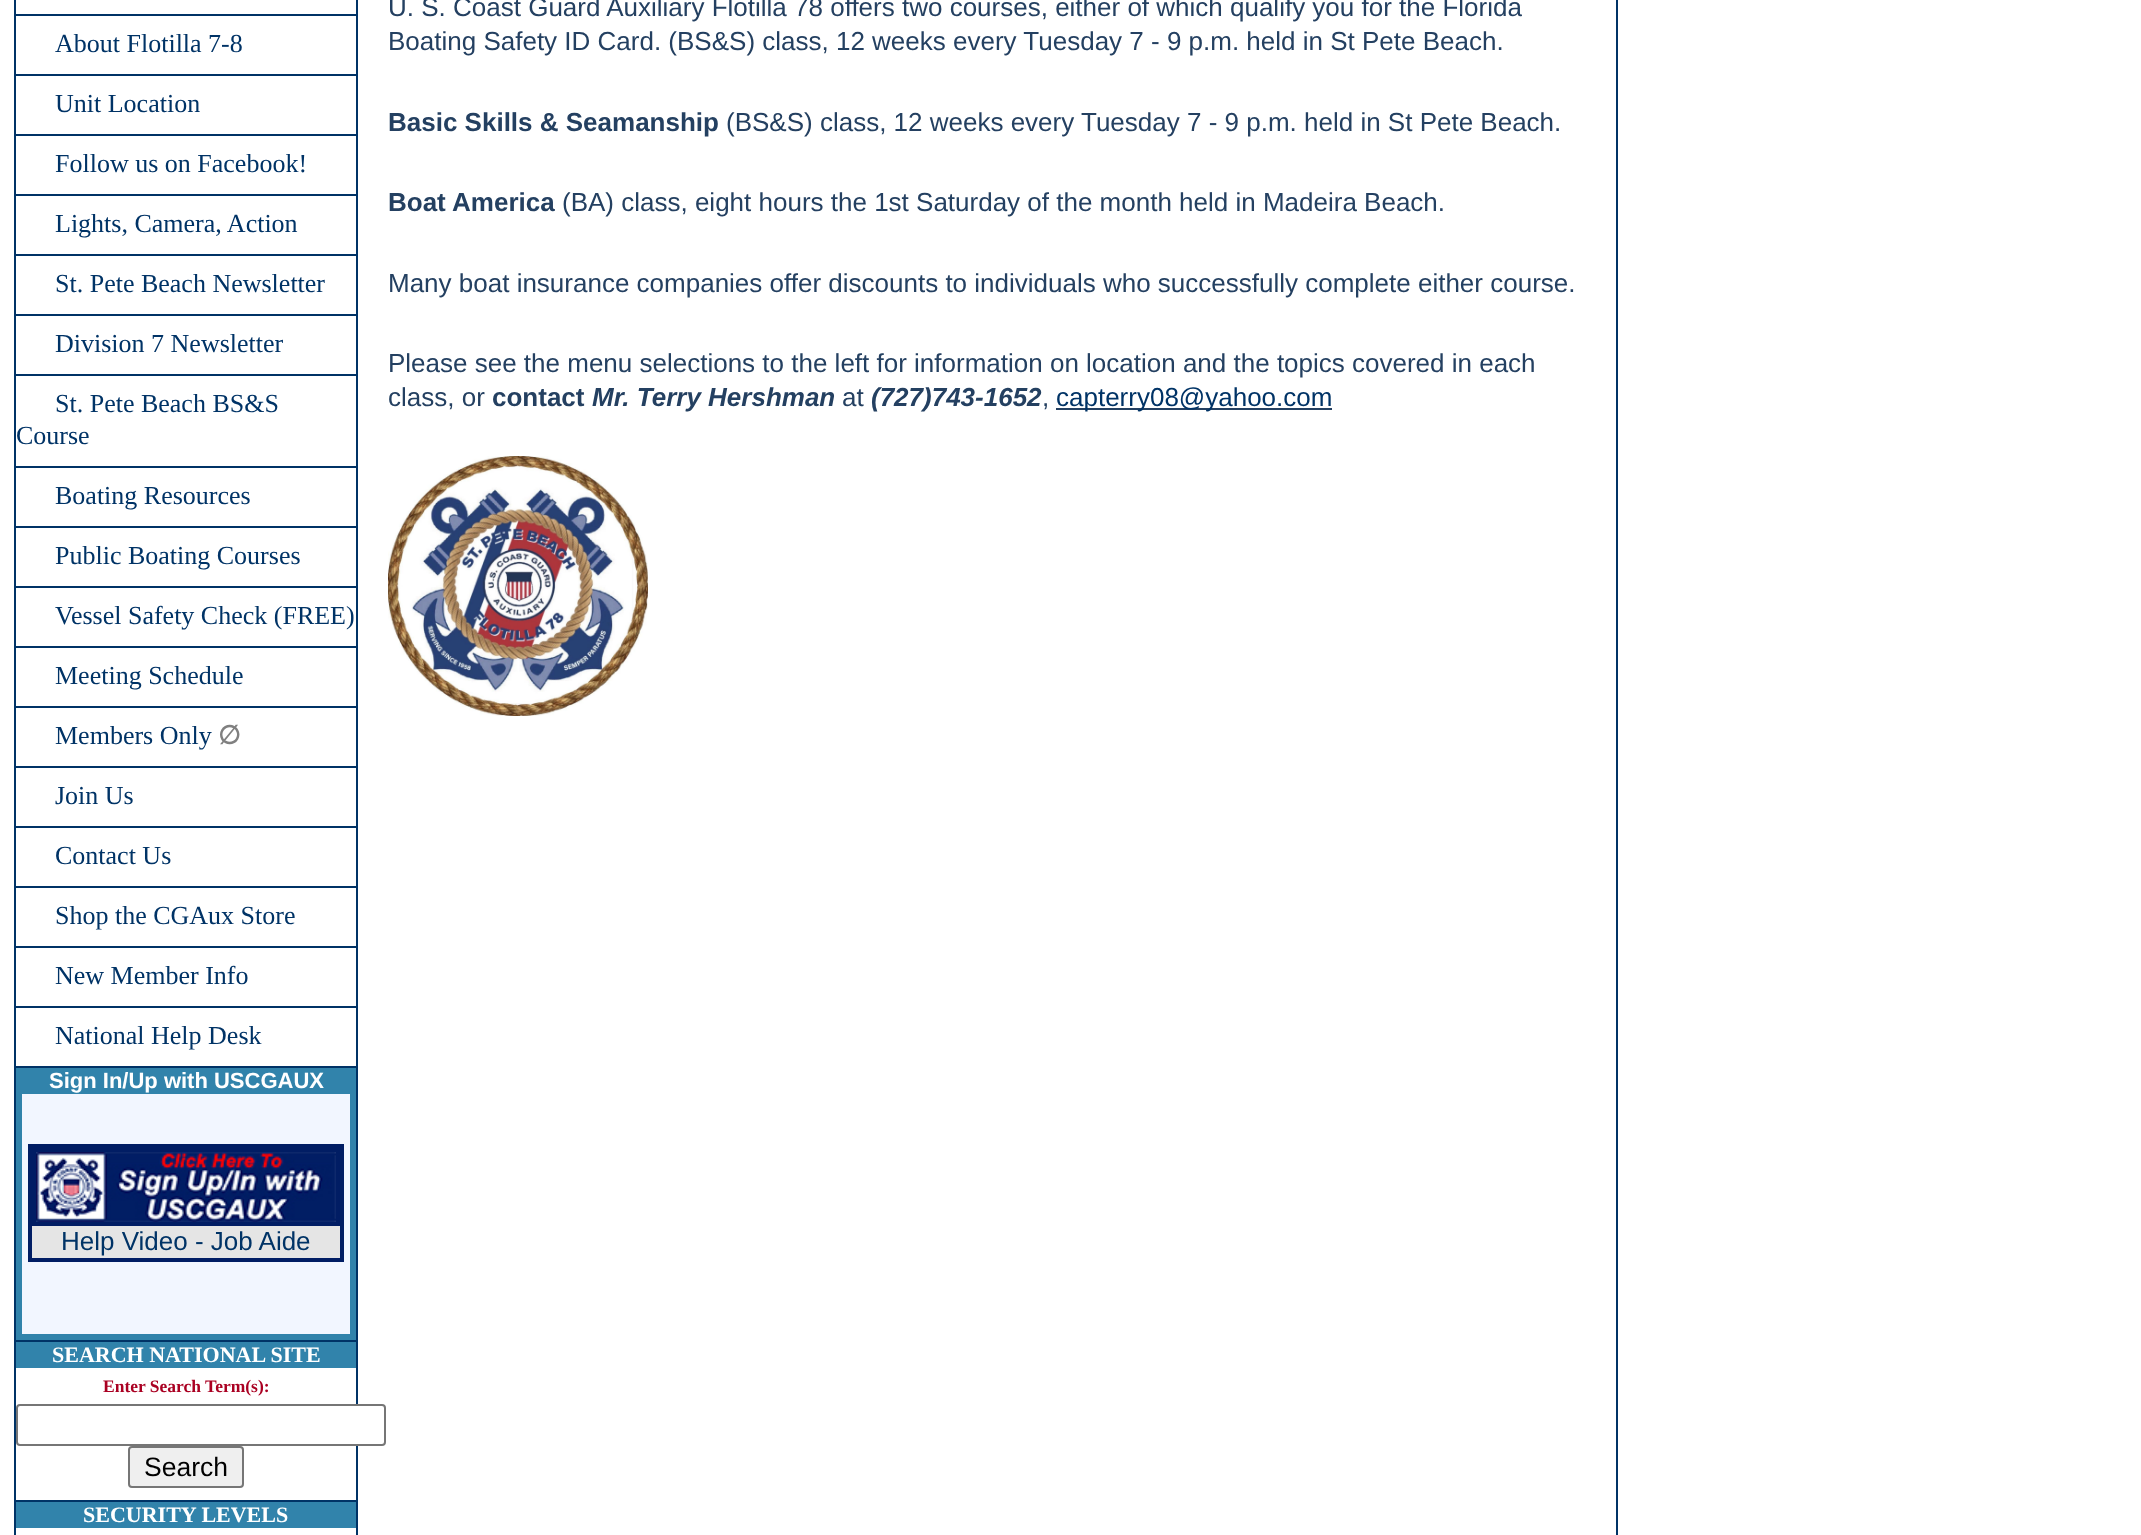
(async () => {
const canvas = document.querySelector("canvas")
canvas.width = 2141
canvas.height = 1535
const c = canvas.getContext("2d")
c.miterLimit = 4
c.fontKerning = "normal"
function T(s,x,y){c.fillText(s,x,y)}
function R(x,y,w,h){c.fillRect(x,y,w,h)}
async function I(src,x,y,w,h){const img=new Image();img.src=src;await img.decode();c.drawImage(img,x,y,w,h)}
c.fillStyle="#fff"
R(0,0,2141,1535)
c.fillStyle="#036"
R(1616,0,2,1535)
R(14,0,2,1535)
R(356,0,2,1502)
R(16,1066,342,2)
R(16,14,340,2)
c.font="26px Liberation Serif"
T("About Flotilla 7-8",55,52)
R(16,74,340,2)
T("Unit Location",55,112)
R(16,134,340,2)
T("Follow us on Facebook!",55,172)
R(16,194,340,2)
T("Lights, Camera, Action",55,232)
R(16,254,340,2)
T("St. Pete Beach Newsletter",55,292)
R(16,314,340,2)
T("Division 7 Newsletter",55,352)
R(16,374,340,2)
T("St. Pete Beach BS&S",55,412)
T("Course",16,444)
R(16,466,340,2)
T("Boating Resources",55,504)
R(16,526,340,2)
T("Public Boating Courses",55,564)
R(16,586,340,2)
T("Vessel Safety Check (FREE)",55,624)
R(16,646,340,2)
T("Meeting Schedule",55,684)
R(16,706,340,2)
T("Members Only",55,744)
c.font="bold 26px DejaVu Sans"
c.fillStyle="#808080"
T("∅",218,744)
c.fillStyle="#036"
R(16,766,340,2)
c.font="26px Liberation Serif"
T("Join Us",55,804)
R(16,826,340,2)
T("Contact Us",55,864)
R(16,886,340,2)
T("Shop the CGAux Store",55,924)
R(16,946,340,2)
T("New Member Info",55,984)
R(16,1006,340,2)
T("National Help Desk",55,1044)
c.fillStyle="#f2f6ff"
R(22,1094,328,240)
c.fillStyle="#036"
R(16,1340,342,2)
c.fillStyle="#3183ab"
R(16,1068,340,26)
c.font="bold 22px Liberation Sans"
c.fillStyle="#fff"
T("Sign In/Up with USCGAUX",49,1088)
c.fillStyle="#3183ab"
R(350,1094,6,246)
R(16,1334,340,6)
R(16,1094,6,246)
c.strokeStyle="#011d64"
c.lineWidth=4
c.strokeRect(30,1146,312,114)
c.fillStyle="#011d64"
R(32,1148,308,78)
await I("1.png",36,1152,300,70)
c.fillStyle="#e5e5e5"
R(32,1226,308,32)
c.font="26px Liberation Sans"
c.fillStyle="#036"
T("Help Video - Job Aide",61,1250)
c.fillStyle="#3183ab"
R(16,1342,340,26)
c.font="bold 22px Liberation Serif"
c.fillStyle="#fff"
T("SEARCH NATIONAL SITE",52,1362)
c.font="bold 17.5px Liberation Serif"
c.fillStyle="#a02"
T("Enter Search Term(s):",103,1392)
c.fillStyle="#fff"
c.beginPath()
c.roundRect(17,1405,368,40,3)
c.fill()
c.strokeStyle="#767676"
c.lineWidth=2
c.stroke()
c.fillStyle="#efefef"
c.beginPath()
c.roundRect(129,1447,114,40,3)
c.fill()
c.stroke()
c.font="26.5px Liberation Sans"
c.fillStyle="#000"
T("Search",144,1476)
c.fillStyle="#036"
R(16,1500,342,2)
R(356,1500,2,35)
c.fillStyle="#3183ab"
R(16,1502,340,26)
c.font="bold 22px Liberation Serif"
c.fillStyle="#fff"
T("SECURITY LEVELS",83,1522)
c.font="26px Liberation Sans"
c.fillStyle="#244061"
T("U. S. Coast Guard Auxiliary Flotilla 78 offers two courses, either of which qualify you for the Florida",388,16)
T("Boating Safety ID Card. (BS&S) class, 12 weeks every Tuesday 7 - 9 p.m. held in St Pete Beach.",388,50)
c.font="bold 26px Liberation Sans"
T("Basic Skills & Seamanship",388,131)
c.font="26px Liberation Sans"
T("(BS&S) class, 12 weeks every Tuesday 7 - 9 p.m. held in St Pete Beach.",726,131)
c.font="bold 26px Liberation Sans"
T("Boat America",388,211)
c.font="26px Liberation Sans"
T("(BA) class, eight hours the 1st Saturday of the month held in Madeira Beach.",562,211)
T("Many boat insurance companies offer discounts to individuals who successfully complete either course.",388,292)
T("Please see the menu selections to the left for information on location and the topics covered in each",388,372)
T("class, or",388,406)
c.font="bold 26px Liberation Sans"
T("contact",492,406)
c.font="italic bold 26px Liberation Sans"
T("Mr. Terry Hershman",592,406)
c.font="26px Liberation Sans"
T("at",842,406)
c.font="italic bold 26px Liberation Sans"
T("(727)743-1652",871,406)
c.font="26px Liberation Sans"
T(",",1042,406)
R(1056,408,276,2)
c.fillStyle="#036"
T("capterry08@yahoo.com",1056,406)
await I("2.png",388,456,260,260)
})()
